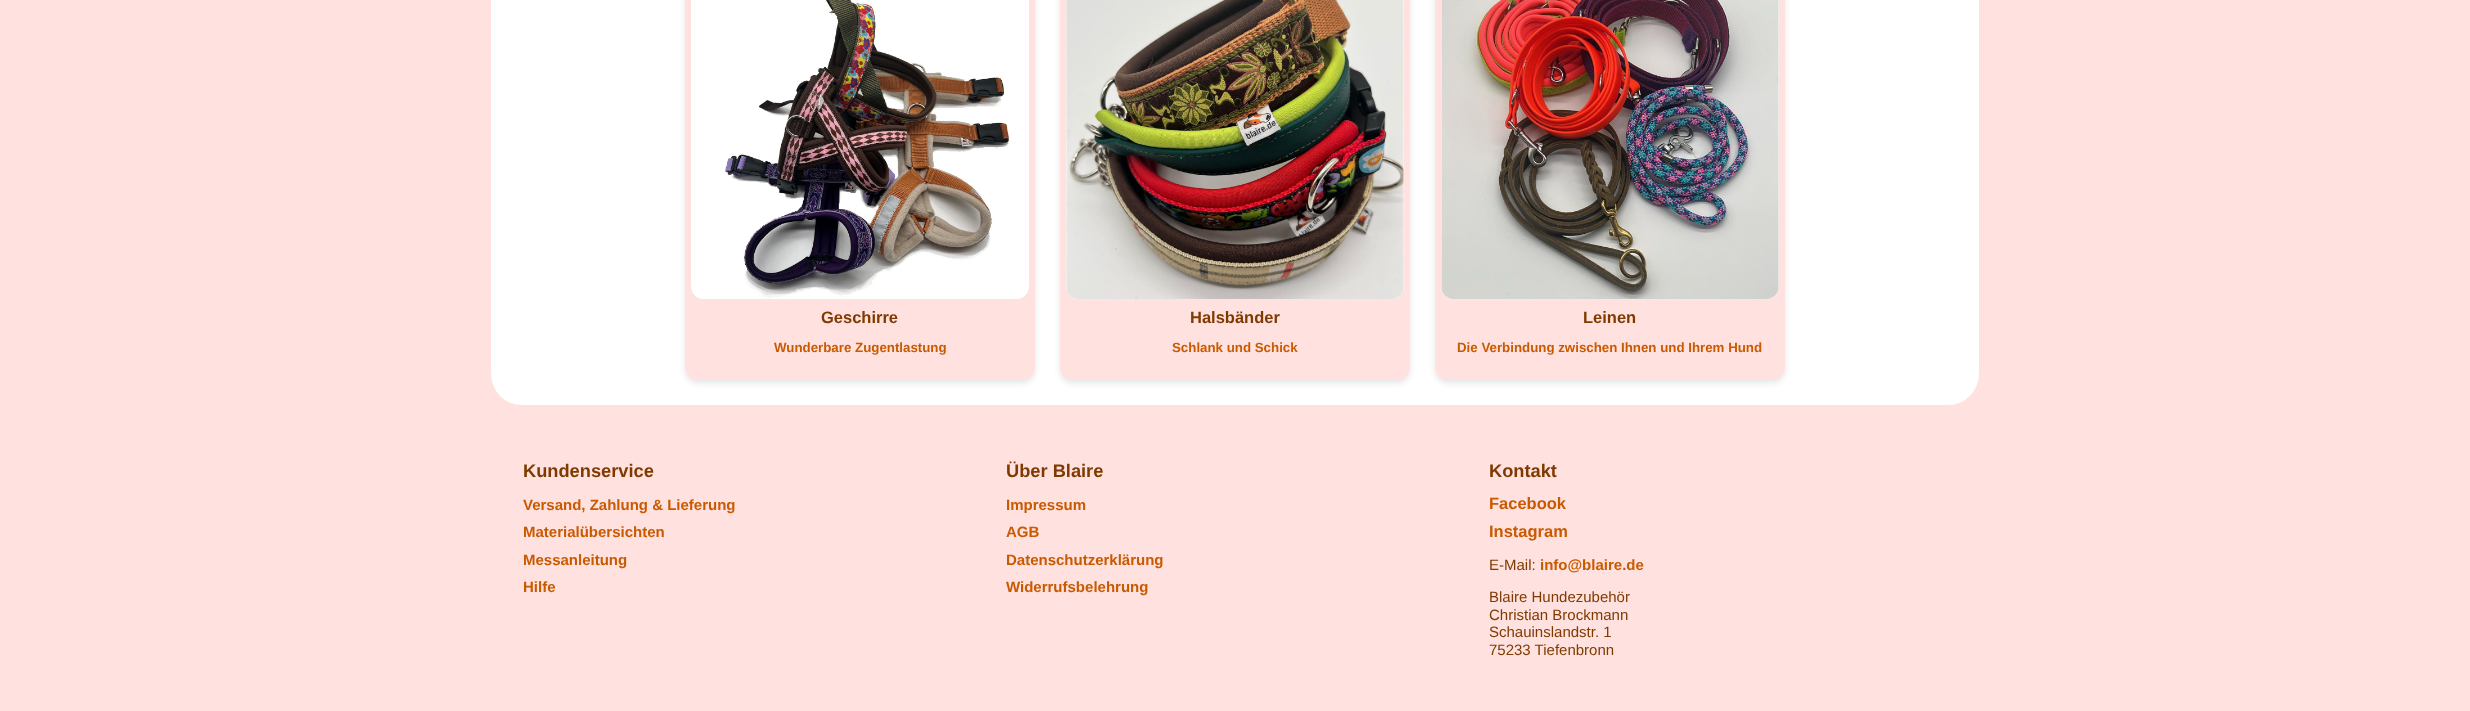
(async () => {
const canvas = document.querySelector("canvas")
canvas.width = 2470
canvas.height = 711
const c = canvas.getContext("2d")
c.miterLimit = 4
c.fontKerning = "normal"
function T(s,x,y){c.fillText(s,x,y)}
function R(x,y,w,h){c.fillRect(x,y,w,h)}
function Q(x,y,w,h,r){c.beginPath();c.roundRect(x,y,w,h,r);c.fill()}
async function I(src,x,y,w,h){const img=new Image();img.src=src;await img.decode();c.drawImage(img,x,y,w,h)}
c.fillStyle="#ffe1df"
R(0,0,2470,711)
c.fillStyle="#fff"
Q(491,-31,1488,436,31)
c.fillStyle="#0000001a"
c.filter="blur(3px)"
c.beginPath()
c.roundRect(685,-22,350,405,13)
c.fill()
c.filter="none"
c.fillStyle="#ffe1df"
Q(685,-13,350,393,13)
c.fillStyle="#fff"
Q(691,-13,338,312,13)
await I("1.png",691,0,338,299)
c.font="bold 16.5px Liberation Sans"
c.fillStyle="#803a01"
T("Geschirre",821,323)
c.font="bold 13.3px Liberation Sans"
c.fillStyle="#c95a00"
T("Wunderbare Zugentlastung",774,352)
c.fillStyle="#0000001a"
c.filter="blur(3px)"
c.beginPath()
c.roundRect(1060,-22,350,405,13)
c.fill()
c.filter="none"
c.fillStyle="#ffe1df"
Q(1060,-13,350,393,13)
c.fillStyle="#fff"
Q(1066,-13,338,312,13)
await I("2.png",1066,0,338,299)
c.font="bold 16.5px Liberation Sans"
c.fillStyle="#803a01"
T("Halsbänder",1190,323)
c.font="bold 13.3px Liberation Sans"
c.fillStyle="#c95a00"
T("Schlank und Schick",1172,352)
c.fillStyle="#0000001a"
c.filter="blur(3px)"
c.beginPath()
c.roundRect(1435,-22,350,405,13)
c.fill()
c.filter="none"
c.fillStyle="#ffe1df"
Q(1435,-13,350,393,13)
c.fillStyle="#fff"
Q(1441,-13,338,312,13)
await I("3.png",1441,0,338,299)
c.font="bold 16.5px Liberation Sans"
c.fillStyle="#803a01"
T("Leinen",1583,323)
c.font="bold 13.3px Liberation Sans"
c.fillStyle="#c95a00"
T("Die Verbindung zwischen Ihnen und Ihrem Hund",1457,352)
c.font="bold 18.25px Liberation Sans"
c.fillStyle="#803a01"
T("Kundenservice",523,477)
c.font="bold 15px Liberation Sans"
c.fillStyle="#c95a00"
T("Versand, Zahlung & Lieferung",523,510)
T("Materialübersichten",523,537)
T("Messanleitung",523,565)
T("Hilfe",523,592)
c.font="bold 18.25px Liberation Sans"
c.fillStyle="#803a01"
T("Über Blaire",1006,477)
c.font="bold 15px Liberation Sans"
c.fillStyle="#c95a00"
T("Impressum",1006,510)
T("AGB",1006,537)
T("Datenschutzerklärung",1006,565)
T("Widerrufsbelehrung",1006,592)
c.font="bold 18.25px Liberation Sans"
c.fillStyle="#803a01"
T("Kontakt",1489,477)
c.font="bold 16.5px Liberation Sans"
c.fillStyle="#c95a00"
T("Facebook",1489,509)
T("Instagram",1489,537)
c.font="15px Liberation Sans"
c.fillStyle="#803a01"
T("E-Mail:",1489,570)
c.font="bold 15px Liberation Sans"
c.fillStyle="#c95a00"
T("info@blaire.de",1540,570)
c.font="15px Liberation Sans"
c.fillStyle="#803a01"
T("Blaire Hundezubehör",1489,602)
T("Christian Brockmann",1489,620)
T("Schauinslandstr. 1",1489,637)
T("75233 Tiefenbronn",1489,655)
})()
